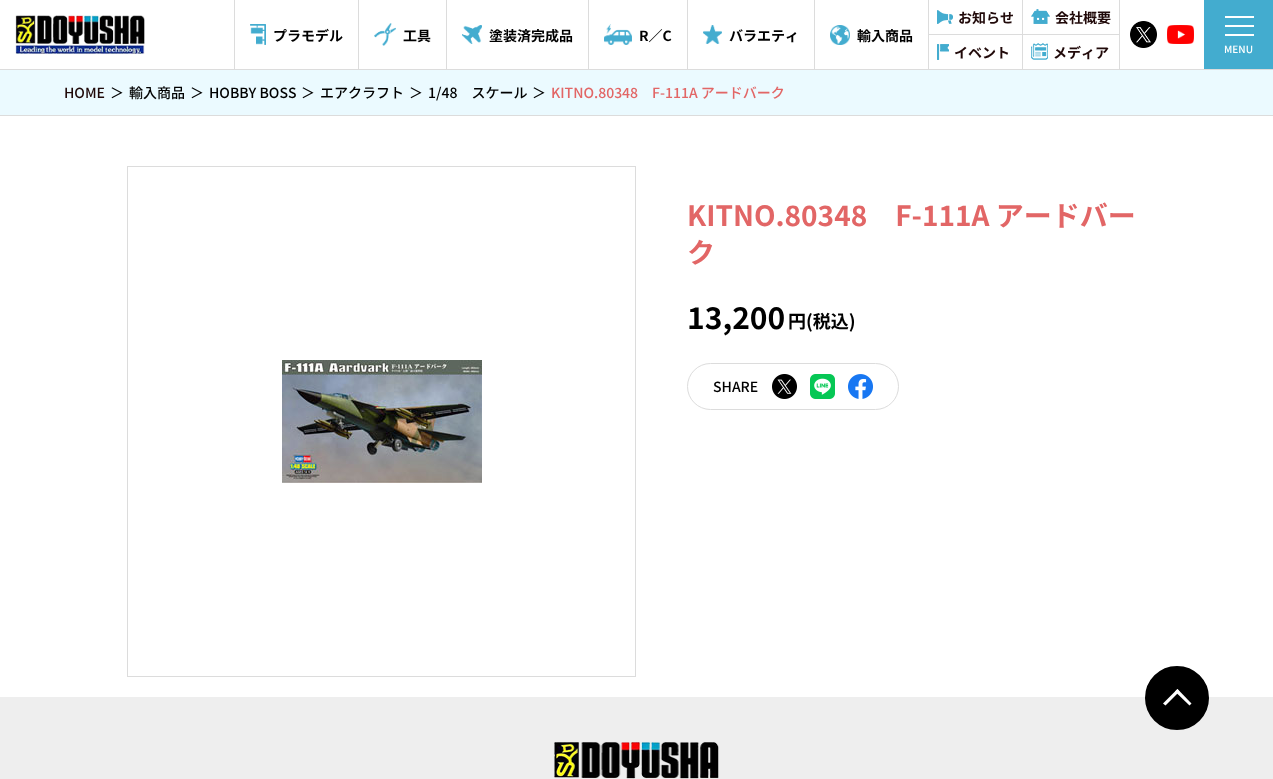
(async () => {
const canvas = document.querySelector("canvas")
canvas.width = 1273
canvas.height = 779
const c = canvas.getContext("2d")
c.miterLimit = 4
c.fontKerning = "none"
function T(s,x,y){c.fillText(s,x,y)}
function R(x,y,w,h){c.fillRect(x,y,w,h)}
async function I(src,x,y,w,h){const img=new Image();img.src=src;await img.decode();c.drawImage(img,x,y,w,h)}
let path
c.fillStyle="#fff"
R(0,0,1273,779)
c.fillStyle="#dcdcdc"
R(0,69,1273,1)
await I("1.png",15,15,130,39)
R(234,0,1,69)
await I("2.png",250,24,16,21)
c.font="bold 14px Noto Sans JP"
c.fillStyle="#000"
T("プラモデル",273,41)
c.fillStyle="#dcdcdc"
R(358,0,1,69)
await I("3.png",374,23,22,23)
c.fillStyle="#000"
T("工具",403,41)
c.fillStyle="#dcdcdc"
R(446,0,1,69)
await I("4.png",462,25,20,19)
c.fillStyle="#000"
T("塗装済完成品",489,41)
c.fillStyle="#dcdcdc"
R(588,0,1,69)
await I("5.png",604,24,28,21)
c.fillStyle="#000"
T("R／C",639,41)
c.fillStyle="#dcdcdc"
R(687,0,1,69)
await I("6.png",703,25,19,19)
c.fillStyle="#000"
T("バラエティ",729,41)
c.fillStyle="#dcdcdc"
R(814,0,1,69)
await I("7.png",830,25,20,20)
c.fillStyle="#000"
T("輸入商品",857,41)
c.fillStyle="#dcdcdc"
R(928,34,191,1)
R(928,0,1,69)
await I("8.png",937,10,16,14)
c.fillStyle="#200909"
T("お知らせ",958,23)
await I("9.png",937,44,12,16)
T("イベント",954,58)
c.fillStyle="#dcdcdc"
R(1022,0,1,69)
await I("10.png",1031,9,19,15)
c.fillStyle="#200909"
T("会社概要",1055,23)
await I("11.png",1031,43,17,17)
T("メディア",1053,58)
c.fillStyle="#dcdcdc"
R(1119,0,1,69)
await I("12.png",1130,21,27,27)
await I("13.png",1167,25,27,19)
c.fillStyle="#43accf"
R(1204,0,69,69)
c.fillStyle="#fff"
R(1225,16,29,2)
R(1225,25,29,2)
R(1225,34,29,2)
c.font="500 10px Noto Sans JP"
T("MENU",1224,53)
c.fillStyle="#ebfaff"
R(0,70,1273,45)
c.fillStyle="#dcdcdc"
R(0,115,1273,1)
c.font="500 14px Noto Sans JP"
c.fillStyle="#200909"
T("HOME",64,98)
c.fillStyle="#000"
T("＞",110,98)
T("輸入商品",129,98)
T("＞",190,98)
T("HOBBY BOSS",209,98)
T("＞",301,98)
T("エアクラフト",320,98)
T("＞",409,98)
T("1/48　スケール",428,98)
T("＞",532,98)
c.fillStyle="#e26666"
T("KITNO.80348　F-111A アードバーク",551,98)
c.strokeStyle="#dcdcdc"
c.strokeRect(127.5,166.5,508,510)
await I("14.png",282,360,200,123)
c.font="bold 28px Noto Sans JP"
T("KITNO.80348　F-111A アードバー",687,226)
T("ク",687,263)
c.font="bold 30px Noto Sans JP"
c.fillStyle="#000"
T("13,200",687,329)
c.font="bold 18px Noto Sans JP"
T("円(税込)",788,328)
c.beginPath()
c.roundRect(687.5,363.5,211,46,23)
c.stroke()
c.font="500 14px Noto Sans JP"
T("SHARE",713,392)
await I("15.png",772,374,25,25)
await I("16.png",810,374,25,25)
await I("17.png",848,374,25,25)
c.fillStyle="#eee"
R(0,697,1273,82)
c.fillStyle="#000"
c.beginPath()
c.arc(1177,698,31,0,7)
c.fill()
c.strokeStyle="#000"
c.lineWidth=2
c.stroke()
c.fillStyle="#fff"
path = new Path2D("M1177.5 689l14 14.5l-2 2l-14.5-14z")
c.fill(path)
path = new Path2D("M1177.5 689l2 2.5l-14 14l-2.5-2z")
c.fill(path)
await I("18.png",554,742,165,37)
})()
